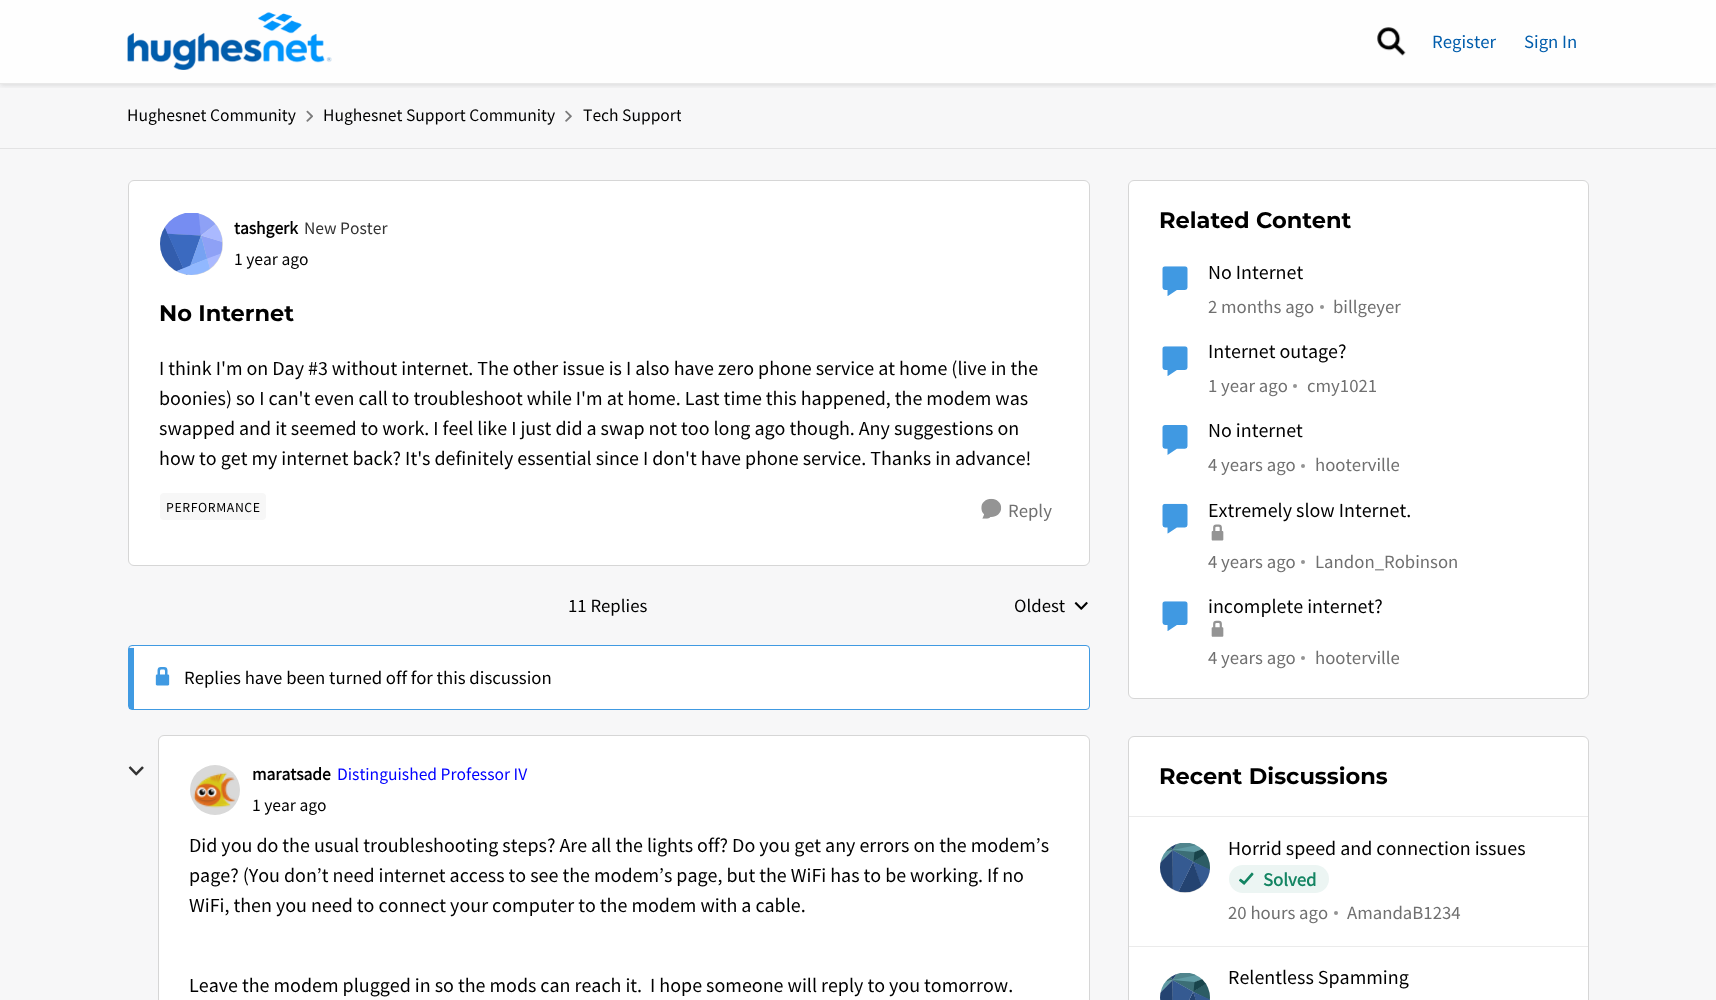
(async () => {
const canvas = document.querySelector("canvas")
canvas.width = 1716
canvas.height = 1000
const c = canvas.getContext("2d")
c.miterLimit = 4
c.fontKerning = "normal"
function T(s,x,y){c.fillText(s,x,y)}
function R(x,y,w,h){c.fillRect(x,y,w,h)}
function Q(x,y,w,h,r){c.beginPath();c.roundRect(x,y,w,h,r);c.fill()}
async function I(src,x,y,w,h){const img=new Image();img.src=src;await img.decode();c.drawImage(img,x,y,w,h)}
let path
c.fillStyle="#f7f7f8"
R(0,0,1716,1000)
c.save()
c.beginPath()
c.rect(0,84,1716,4)
c.clip()
c.fillStyle="#3333331f"
c.filter="blur(2.5px)"
c.beginPath()
c.rect(0,3,1716,83)
c.fill()
c.filter="none"
c.restore()
c.fillStyle="#ffffffcc"
R(0,0,1716,83)
c.fillStyle="#e8e8e8"
R(0,83,1716,1)
await I("1.png",127,12,205,58)
await I("2.png",1377,27,29,29)
c.font="18.75px Source Sans Pro"
c.fillStyle="#005dac"
T("Register",1432,48)
T("Sign In",1524,48)
c.fillStyle="#e3e3e4"
R(0,148,1716,1)
c.font="17.5px Source Sans Pro"
c.fillStyle="#000"
T("Hughesnet Community",127,121)
await I("3.png",306,110,7,12)
T("Hughesnet Support Community",323,121)
await I("4.png",565,110,7,12)
c.save()
c.beginPath()
c.rect(583,96,98,39)
c.clip()
T("Tech Support",583,121)
c.restore()
c.fillStyle="#fff"
c.beginPath()
c.roundRect(128.5,180.5,961,385,5.5)
c.fill()
c.strokeStyle="#d6d6d6"
c.stroke()
c.fillStyle="#d9d9d9"
Q(160,213,63,62,31)
await I("5.png",160,213,63,62)
c.font="bold 17.5px Source Sans Pro"
c.fillStyle="#000"
T("tashgerk",234,234)
c.font="17.5px Source Sans Pro"
c.fillStyle="#333"
T("New Poster",304,234)
c.fillStyle="#000"
T("1 year ago",234,265)
c.font="bold 22.5px Montserrat"
T("No Internet",159,321)
c.font="20px Source Sans Pro"
T("I think I'm on Day #3 without internet. The other issue is I also have zero phone service at home (live in the",159,375)
T("boonies) so I can't even call to troubleshoot while I'm at home. Last time this happened, the modem was",159,405)
T("swapped and it seemed to work. I feel like I just did a swap not too long ago though. Any suggestions on",159,435)
T("how to get my internet back? It's definitely essential since I don't have phone service. Thanks in advance!",159,465)
c.fillStyle="#f7f7f7"
Q(160,493,106,27,4)
c.letterSpacing="0.6px"
c.font="13.75px Source Sans Pro"
c.fillStyle="#000"
T("PERFORMANCE",166,512)
await I("6.png",981,498,21,21)
c.letterSpacing="0px"
c.font="18.75px Source Sans Pro"
c.fillStyle="#707070"
T("Reply",1008,517)
c.fillStyle="#000"
T("11 Replies",568,612)
T("Oldest",1014,612)
await I("7.png",1074,601,14,9)
c.fillStyle="#fff"
path = new Path2D("M134 646h952c2 0 3 1 3 3v57c0 2-1 3-3 3h-952z")
c.fill(path)
c.beginPath()
c.roundRect(128.5,645.5,961,64,3.5)
c.strokeStyle="#409ae2"
c.stroke()
c.fillStyle="#409ae2"
R(129,648,5,61)
await I("8.png",155,667,15,19)
c.fillStyle="#000"
T("Replies have been turned off for this discussion",184,684)
await I("9.png",128,766,16,10)
c.fillStyle="#fff"
c.beginPath()
c.roundRect(158.5,735.5,931,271,5.5)
c.fill()
c.strokeStyle="#d6d6d6"
c.stroke()
c.fillStyle="#d9d9d9"
c.beginPath()
c.arc(215,790,25,0,7)
c.fill()
await I("10.png",193,772,43,36)
c.font="bold 17.5px Source Sans Pro"
c.fillStyle="#000"
T("maratsade",252,780)
c.font="17.5px Source Sans Pro"
c.fillStyle="#00f"
T("Distinguished Professor IV",337,780)
c.fillStyle="#000"
T("1 year ago",252,811)
c.font="20px Source Sans Pro"
T("Did you do the usual troubleshooting steps? Are all the lights off? Do you get any errors on the modem’s",189,852)
T("page? (You don’t need internet access to see the modem’s page, but the WiFi has to be working. If no",189,882)
T("WiFi, then you need to connect your computer to the modem with a cable.",189,912)
T("Leave the modem plugged in so the mods can reach it.  I hope someone will reply to you tomorrow.",189,992)
c.fillStyle="#fff"
c.beginPath()
c.roundRect(1128.5,180.5,460,518,5.5)
c.fill()
c.stroke()
c.font="bold 22.5px Montserrat"
c.fillStyle="#000"
T("Related Content",1159,228)
await I("11.png",1162,266,26,30)
c.font="20px Source Sans Pro"
T("No Internet",1208,279)
c.font="18.75px Source Sans Pro"
c.fillStyle="#707070"
T("2 months ago",1208,313)
c.fillStyle="#949494"
c.beginPath()
c.arc(1322,307,2,0,7)
c.fill()
c.fillStyle="#707070"
T("billgeyer",1333,313)
await I("11.png",1162,346,26,30)
c.font="20px Source Sans Pro"
c.fillStyle="#000"
T("Internet outage?",1208,358)
c.font="18.75px Source Sans Pro"
c.fillStyle="#707070"
T("1 year ago",1208,392)
c.fillStyle="#949494"
c.beginPath()
c.arc(1295,386,2,0,7)
c.fill()
c.fillStyle="#707070"
T("cmy1021",1307,392)
await I("12.png",1162,425,26,30)
c.font="20px Source Sans Pro"
c.fillStyle="#000"
T("No internet",1208,437)
c.font="18.75px Source Sans Pro"
c.fillStyle="#707070"
T("4 years ago",1208,471)
c.fillStyle="#949494"
c.beginPath()
c.arc(1303,466,2,0,7)
c.fill()
c.fillStyle="#707070"
T("hooterville",1315,471)
await I("13.png",1162,503,26,31)
c.font="20px Source Sans Pro"
c.fillStyle="#000"
T("Extremely slow Internet.",1208,517)
await I("14.png",1211,524,13,17)
c.font="18.75px Source Sans Pro"
c.fillStyle="#707070"
T("4 years ago",1208,568)
c.fillStyle="#949494"
c.beginPath()
c.arc(1303,562,2,0,7)
c.fill()
c.fillStyle="#707070"
T("Landon_Robinson",1315,568)
await I("11.png",1162,601,26,30)
c.font="20px Source Sans Pro"
c.fillStyle="#000"
T("incomplete internet?",1208,613)
await I("15.png",1211,620,13,17)
c.font="18.75px Source Sans Pro"
c.fillStyle="#707070"
T("4 years ago",1208,664)
c.fillStyle="#949494"
c.beginPath()
c.arc(1303,658,2,0,7)
c.fill()
c.fillStyle="#707070"
T("hooterville",1315,664)
c.fillStyle="#fff"
c.beginPath()
c.roundRect(1128.5,736.5,460,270,5.5)
c.fill()
c.stroke()
c.fillStyle="#ebebeb"
R(1129,816,459,1)
c.font="bold 22.5px Montserrat"
c.fillStyle="#000"
T("Recent Discussions",1159,784)
c.fillStyle="#ebebeb"
R(1129,946,459,1)
c.fillStyle="#d9d9d9"
c.beginPath()
c.arc(1185,868,25,0,7)
c.fill()
await I("16.png",1160,843,50,50)
c.font="20px Source Sans Pro"
c.fillStyle="#000"
T("Horrid speed and connection issues",1228,855)
c.fillStyle="#ecf5f3"
Q(1229,865,100,28,14)
await I("17.png",1239,872,15,13)
c.font="bold 18.75px Source Sans Pro"
c.fillStyle="#148563"
T("Solved",1263,886)
c.font="18.75px Source Sans Pro"
c.fillStyle="#707070"
T("20 hours ago",1228,919)
c.fillStyle="#949494"
c.beginPath()
c.arc(1336,913,2,0,7)
c.fill()
c.fillStyle="#707070"
T("AmandaB1234",1347,919)
await I("18.png",1160,973,50,27)
c.font="20px Source Sans Pro"
c.fillStyle="#000"
T("Relentless Spamming",1228,984)
})()
